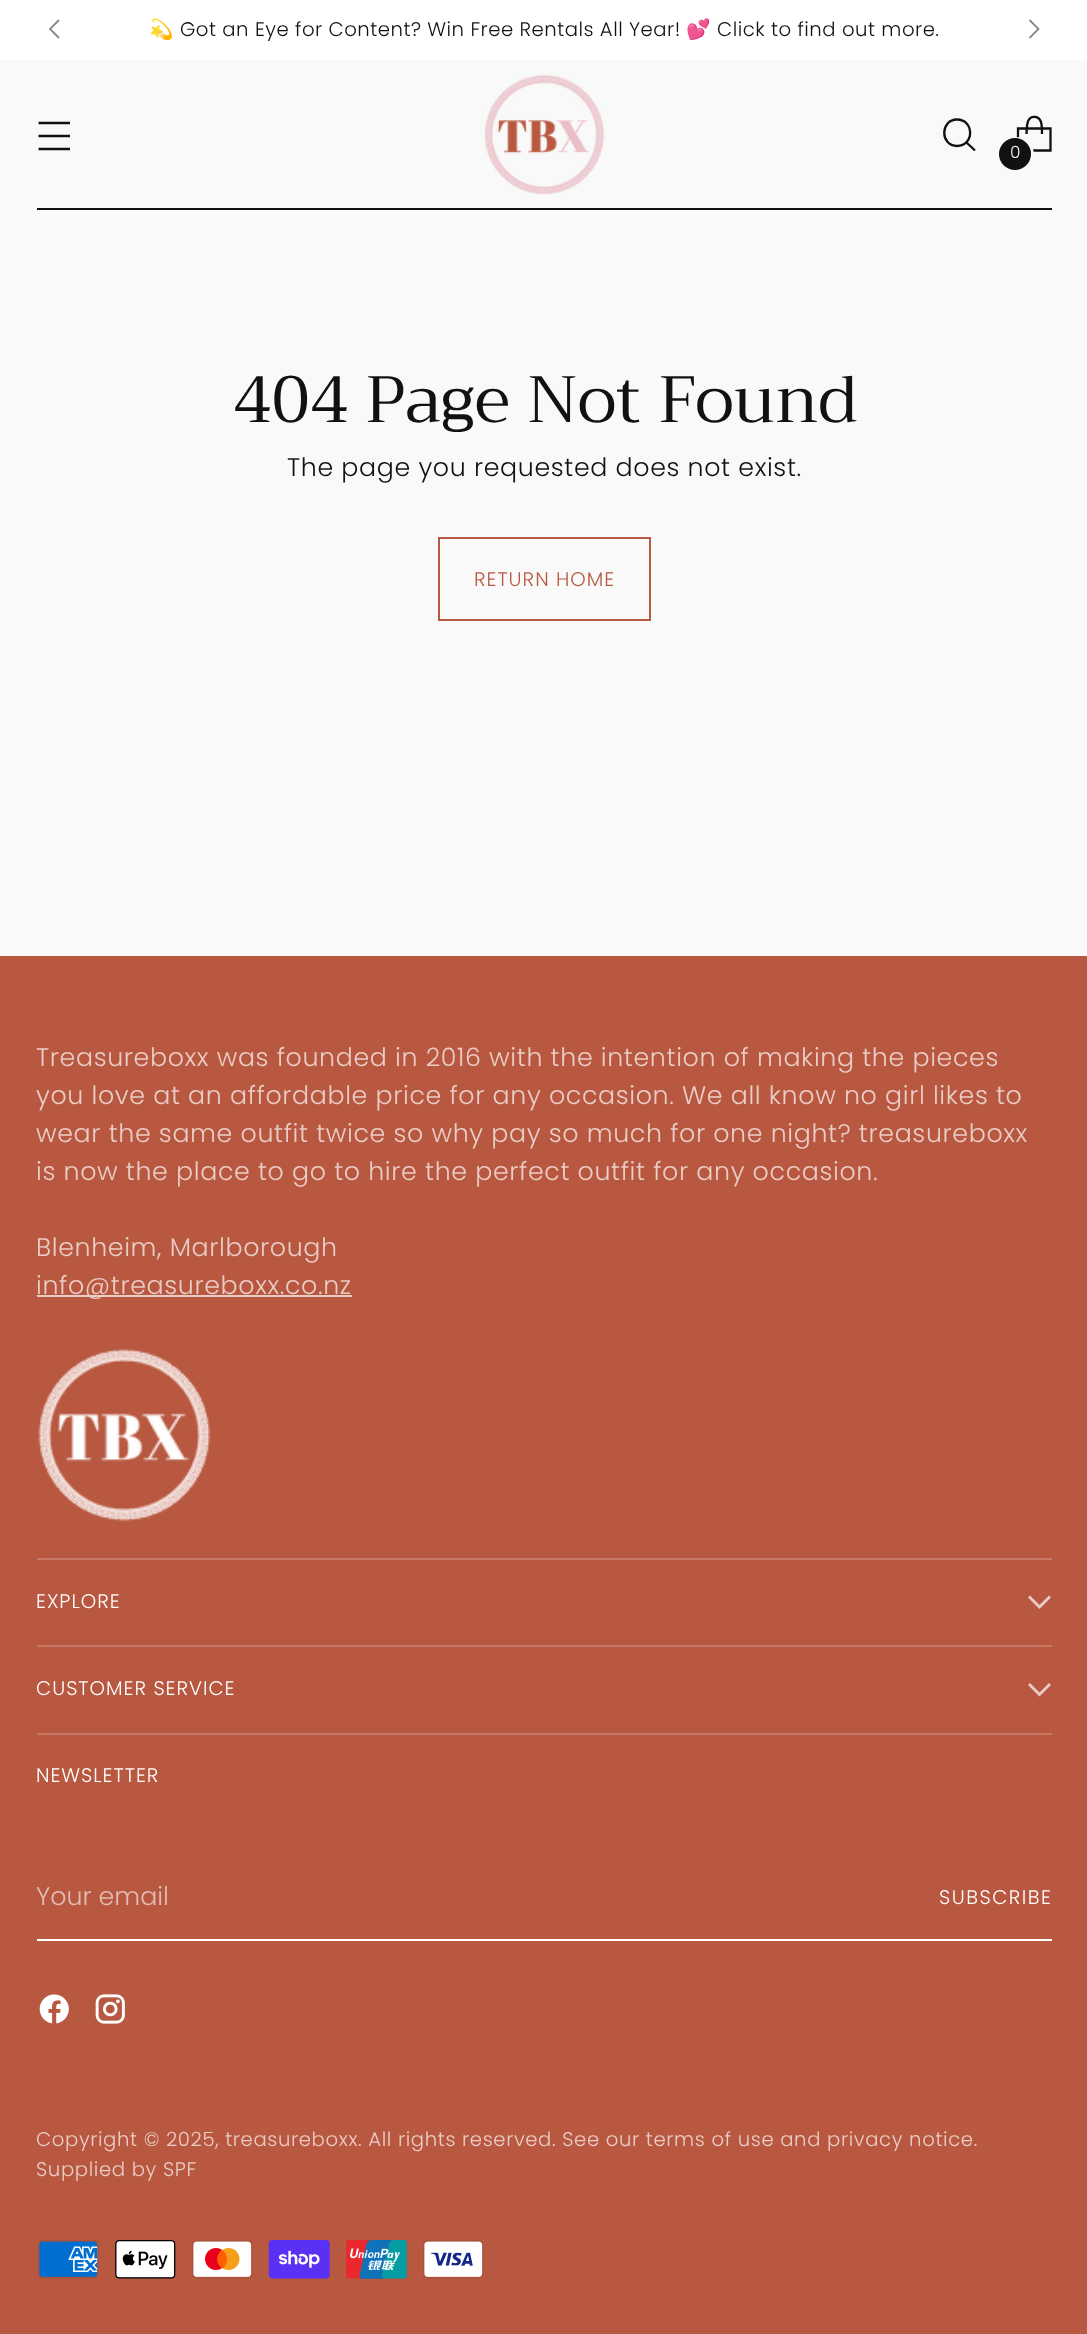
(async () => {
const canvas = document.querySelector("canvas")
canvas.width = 1087
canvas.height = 2334
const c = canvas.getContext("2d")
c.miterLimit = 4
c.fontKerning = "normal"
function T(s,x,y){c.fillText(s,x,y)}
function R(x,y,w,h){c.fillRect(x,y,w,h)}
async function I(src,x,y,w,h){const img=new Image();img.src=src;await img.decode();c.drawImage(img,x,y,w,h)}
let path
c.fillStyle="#f9f9f9"
R(0,0,1087,2334)
c.fillStyle="#fff"
R(0,0,1087,60)
c.letterSpacing="0.5px"
c.font="19.65px Noto Color Emoji"
c.fillStyle="#111"
T("💫",149,36)
c.font="300 19.65px Poppins"
T("Got an Eye for Content? Win Free Rentals All Year!",180,36)
c.font="19.65px Noto Color Emoji"
T("💕",686,36)
c.font="300 19.65px Poppins"
T("Click to find out more.",717,36)
path = new Path2D("M59 20l-9 9l9 9")
c.strokeStyle="#888"
c.lineWidth=1.8
c.stroke(path)
path = new Path2D("M1029.5 38l9-9l-9-9")
c.stroke(path)
R(37,208,1015,2)
path = new Path2D("M38.5 136h31.5m-31.5-13h31.5m-31.5 26h31.5")
c.strokeStyle="#111"
c.lineWidth=2.3
c.stroke(path)
await I("1.png",484,74,121,121)
path = new Path2D("M957 146c17.5 0 17.5-26.5 0-26.5c-17 0-17 26.5 0 26.5z")
c.lineCap="round"
c.stroke(path)
path = new Path2D("M966.5 142.5l8.5 8")
c.lineCap="butt"
c.stroke(path)
path = new Path2D("M1042 134c0-4 0-8.5-1-12c-1-2.5-2.5-4.5-5-5c-10-2-9 10.5-9.5 17")
c.lineJoin="bevel"
c.stroke(path)
path = new Path2D("M1050.5 150.5v-22h-32.5v22z")
c.lineJoin="miter"
c.stroke(path)
c.beginPath()
c.arc(1016,155,16.5,0,7)
c.strokeStyle="#f9f9f9"
c.lineWidth=3
c.stroke()
c.beginPath()
c.arc(1015,154,16,0,7)
c.fill()
c.letterSpacing="0.63px"
c.font="300 17px Poppins"
c.fillStyle="#f9f9f9"
T("0",1010,158)
c.letterSpacing="0px"
c.font="65.5px Trirong"
c.fillStyle="#111"
T("404 Page Not Found",233,422)
c.letterSpacing="0.63px"
c.font="300 25.3px Poppins"
T("The page you requested does not exist.",287,476)
c.strokeStyle="#b85840"
c.lineWidth=2
c.strokeRect(439,538,211,82)
c.letterSpacing="1px"
c.font="300 19.65px Poppins"
c.fillStyle="#b85840"
T("RETURN HOME",474,586)
R(0,956,1087,1378)
c.fillStyle="#c67966"
R(37,1558,1015,2)
c.letterSpacing="0.63px"
c.font="300 25.3px Poppins"
c.fillStyle="#eacdc6"
T("Treasureboxx was founded in 2016 with the intention of making the pieces",36,1066)
T("you love at an affordable price for any occasion. We all know no girl likes to",36,1104)
T("wear the same outfit twice so why pay so much for one night? treasureboxx",36,1142)
T("is now the place to go to hire the perfect outfit for any occasion.",36,1180)
T("Blenheim, Marlborough",36,1256)
R(37,1295,315,2)
T("info@treasureboxx.co.nz",36,1294)
await I("2.png",38,1349,173,173)
c.fillStyle="#c67966"
R(37,1645,1015,2)
c.letterSpacing="1px"
c.font="300 19.65px Poppins"
c.fillStyle="#fff"
T("EXPLORE",36,1608)
path = new Path2D("M1029 1596.5l10.5 10.5l10.5-10.5")
c.strokeStyle="#eacdc6"
c.lineWidth=2.8
c.stroke(path)
c.fillStyle="#c67966"
R(37,1733,1015,2)
c.fillStyle="#fff"
T("CUSTOMER SERVICE",36,1695)
path = new Path2D("M1029 1684l10.5 10.5l10.5-10.5")
c.stroke(path)
T("NEWSLETTER",36,1782)
R(37,1939,1015,2)
c.letterSpacing="0px"
c.font="300 25.3px Poppins"
c.fillStyle="#e3bcb3"
T("Your email",36,1905)
c.letterSpacing="1.5px"
c.font="300 19.65px Poppins"
c.fillStyle="#fff"
T("SUBSCRIBE",939,1904)
await I("3.png",39,1994,30,30)
await I("4.png",95,1994,30,30)
c.letterSpacing="0.63px"
c.fillStyle="#eacdc6"
T("Copyright © 2025, treasureboxx. All rights reserved. See our terms of use and privacy notice.",36,2146)
T("Supplied by SPF",36,2176)
await I("5.png",38,2240,61,39)
await I("6.png",115,2240,61,39)
await I("7.png",192,2240,61,39)
await I("8.png",268,2240,62,39)
await I("9.png",346,2240,61,39)
await I("10.png",423,2240,61,39)
})()
